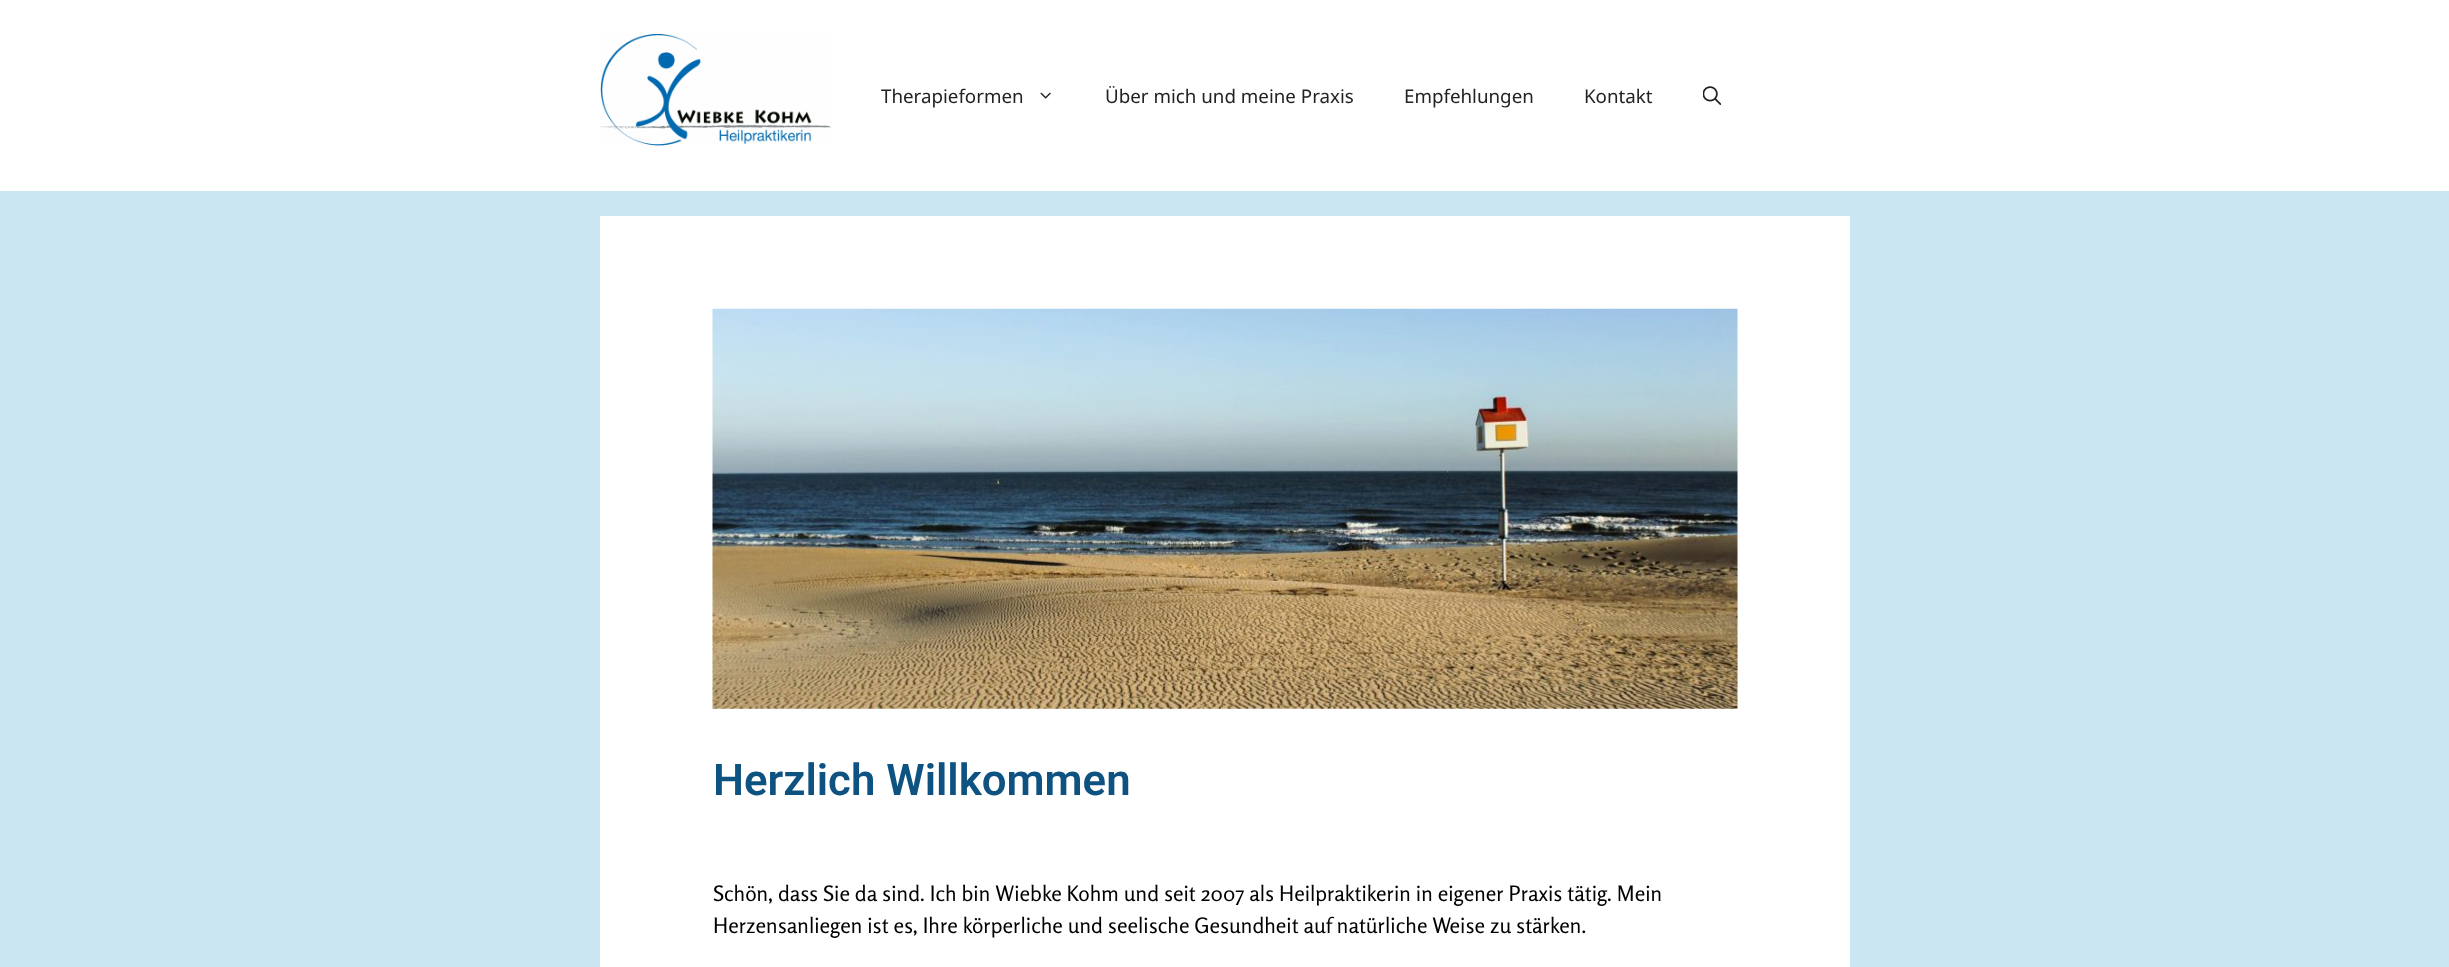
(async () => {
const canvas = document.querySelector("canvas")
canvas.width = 2449
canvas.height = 967
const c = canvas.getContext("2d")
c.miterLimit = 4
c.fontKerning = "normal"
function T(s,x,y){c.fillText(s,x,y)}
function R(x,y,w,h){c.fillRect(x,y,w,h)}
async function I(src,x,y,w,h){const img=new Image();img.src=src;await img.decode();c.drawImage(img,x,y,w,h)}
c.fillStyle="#cae6f3"
R(0,0,2449,967)
c.fillStyle="#fff"
R(0,0,2449,191)
await I("1.png",600,33,232,113)
c.font="18.75px Noto Sans"
c.fillStyle="#222"
T("Therapieformen",881,103)
await I("2.png",1040,92,11,7)
T("Über mich und meine Praxis",1105,103)
T("Empfehlungen",1404,103)
T("Kontakt",1584,103)
await I("3.png",1703,86,18,19)
c.fillStyle="#fff"
R(600,216,1250,751)
await I("4.png",712,308,1026,401)
c.font="600 43.75px Roboto"
c.fillStyle="#0d5280"
T("Herzlich Willkommen",713,795)
c.font="21.25px Rosario"
c.fillStyle="#000"
T("Schön, dass Sie da sind. Ich bin Wiebke Kohm und seit 2007 als Heilpraktikerin in eigener Praxis tätig. Mein",713,901)
T("Herzensanliegen ist es, Ihre körperliche und seelische Gesundheit auf natürliche Weise zu stärken.",713,933)
})()
